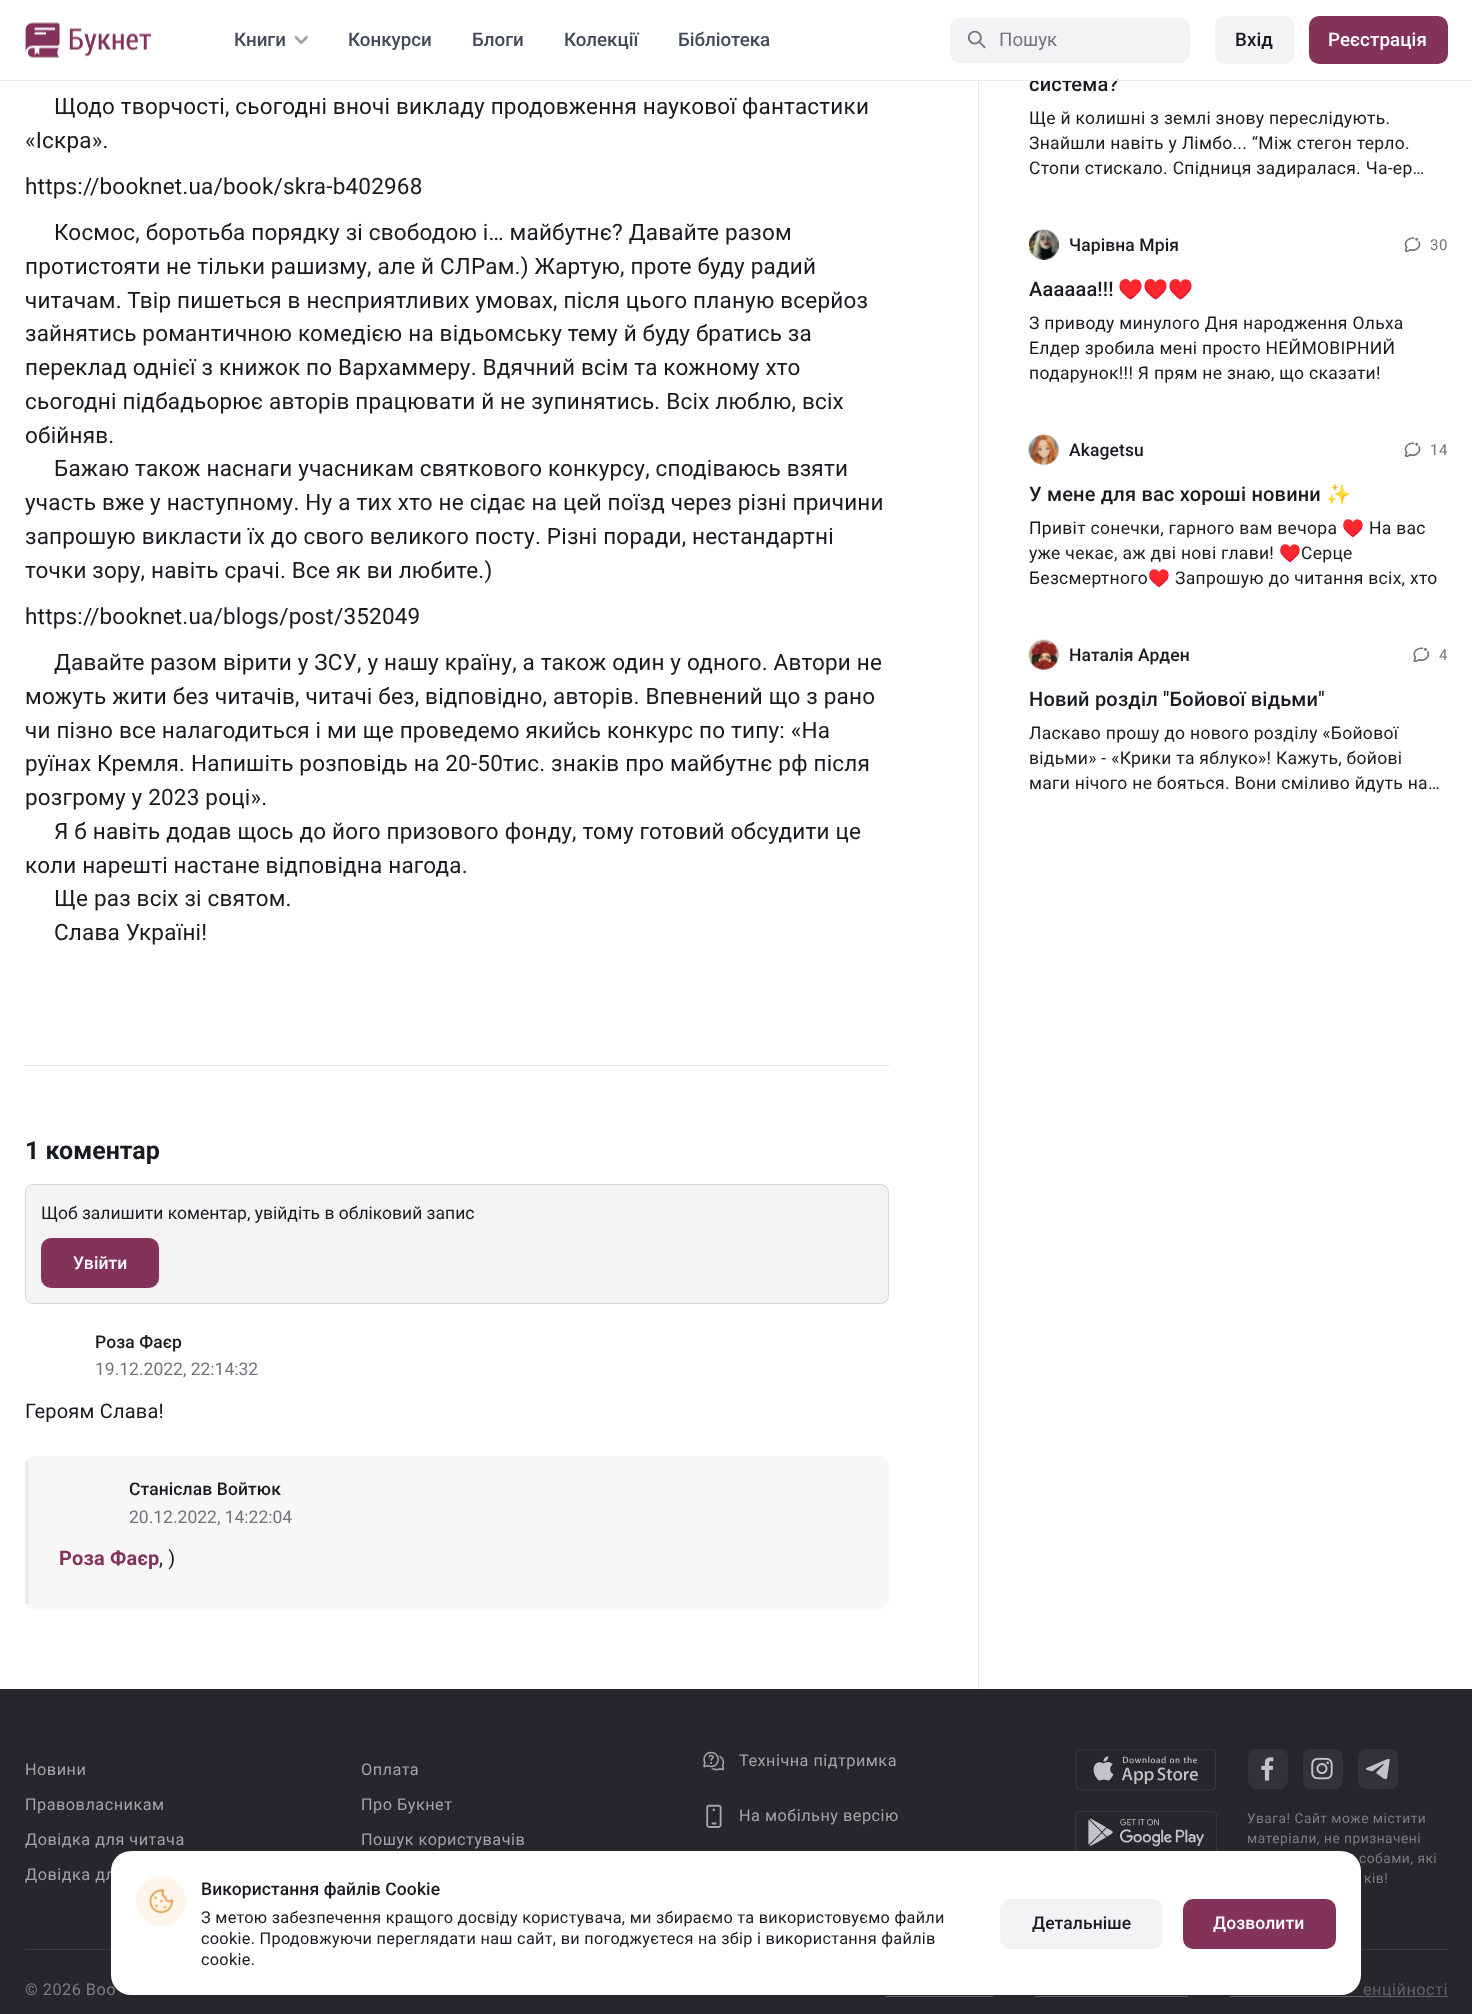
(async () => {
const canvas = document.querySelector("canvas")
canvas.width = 1472
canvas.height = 2014
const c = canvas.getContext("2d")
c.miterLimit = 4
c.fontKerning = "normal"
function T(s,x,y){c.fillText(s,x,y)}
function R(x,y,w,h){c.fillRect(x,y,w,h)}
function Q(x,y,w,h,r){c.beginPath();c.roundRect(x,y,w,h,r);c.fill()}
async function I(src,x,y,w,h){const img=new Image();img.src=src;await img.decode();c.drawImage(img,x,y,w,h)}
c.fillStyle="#fff"
R(0,0,1472,2014)
c.letterSpacing="0.2px"
c.font="500 20px Roboto"
c.fillStyle="#171a1f"
T("система?",1029,91)
c.fillStyle="#fff"
R(1108,76,9,4)
c.fillStyle="#ebebeb"
R(0,80,1472,1)
await I("1.png",25,22,127,36)
c.letterSpacing="0px"
c.font="500 18.75px Roboto"
c.fillStyle="#424957"
T("Книги",234,46)
await I("2.png",294,35,14,10)
T("Конкурси",348,46)
T("Блоги",472,46)
T("Колекції",564,46)
T("Бібліотека",678,46)
c.fillStyle="#f2f3f5"
Q(950,18,240,45,10)
await I("3.png",967,30,19,19)
c.font="18.75px Roboto"
c.fillStyle="#71747a"
T("Пошук",999,46)
c.fillStyle="#f2f3f5"
Q(1215,16,79,48,10)
c.letterSpacing="0.1px"
c.font="500 18.75px Roboto"
c.fillStyle="#171a1f"
T("Вхід",1235,46)
c.fillStyle="#83325a"
Q(1309,16,139,48,10)
c.fillStyle="#fff"
T("Реєстрація",1328,46)
c.letterSpacing="0.2px"
c.font="22.5px Roboto"
c.fillStyle="#171a1f"
T("Щодо творчості, сьогодні вночі викладу продовження наукової фантастики",54,114)
T("«Іскра».",25,148)
T("https://booknet.ua/book/skra-b402968",25,194)
T("Космос, боротьба порядку зі свободою і… майбутнє? Давайте разом",54,240)
T("протистояти не тільки рашизму, але й СЛРам.) Жартую, проте буду радий",25,274)
T("читачам. Твір пишеться в несприятливих умовах, після цього планую всерйоз",25,308)
T("зайнятись романтичною комедією на відьомську тему й буду братись за",25,341)
T("переклад однієї з книжок по Вархаммеру. Вдячний всім та кожному хто",25,375)
T("сьогодні підбадьорює авторів працювати й не зупинятись. Всіх люблю, всіх",25,409)
T("обійняв.",25,443)
T("Бажаю також наснаги учасникам святкового конкурсу, сподіваюсь взяти",54,476)
T("участь вже у наступному. Ну а тих хто не сідає на цей поїзд через різні причини",25,510)
T("запрошую викласти їх до свого великого посту. Різні поради, нестандартні",25,544)
T("точки зору, навіть срачі. Все як ви любите.)",25,578)
T("https://booknet.ua/blogs/post/352049",25,624)
T("Давайте разом вірити у ЗСУ, у нашу країну, а також один у одного. Автори не",54,670)
T("можуть жити без читачів, читачі без, відповідно, авторів. Впевнений що з рано",25,704)
T("чи пізно все налагодиться і ми ще проведемо якийсь конкурс по типу: «На",25,738)
T("руїнах Кремля. Напишіть розповідь на 20-50тис. знаків про майбутнє рф після",25,771)
T("розгрому у 2023 році».",25,805)
T("Я б навіть додав щось до його призового фонду, тому готовий обсудити це",54,839)
T("коли нарешті настане відповідна нагода.",25,873)
T("Ще раз всіх зі святом.",54,906)
T("Слава Україні!",54,940)
c.fillStyle="#e0e0e0"
R(25,1065,864,1)
c.letterSpacing="0px"
c.font="bold 25px Roboto"
c.fillStyle="#171a1f"
T("1 коментар",25,1159)
c.fillStyle="#f3f3f4"
Q(25,1184,864,120,8)
c.beginPath()
c.roundRect(25.5,1184.5,863,119,7.5)
c.strokeStyle="#0000001f"
c.stroke()
c.font="17.5px Roboto"
c.fillStyle="#171a1f"
T("Щоб залишити коментар, увійдіть в обліковий запис",41,1219)
c.fillStyle="#83325a"
Q(41,1238,118,50,10)
c.letterSpacing="0.1px"
c.font="500 17.5px Roboto"
c.fillStyle="#fff"
T("Увійти",73,1269)
c.fillStyle="#171a1f"
T("Роза Фаєр",95,1348)
c.letterSpacing="0px"
c.font="17.5px Roboto"
c.fillStyle="#71747a"
T("19.12.2022, 22:14:32",95,1375)
c.letterSpacing="0.2px"
c.font="20px Roboto"
c.fillStyle="#171a1f"
T("Героям Слава!",25,1418)
c.fillStyle="#f7f7f8"
Q(25,1456,864,153,10)
c.fillStyle="#ebebeb"
R(25,1461,4,143)
c.letterSpacing="0.1px"
c.font="500 17.5px Roboto"
c.fillStyle="#171a1f"
T("Станіслав Войтюк",129,1495)
c.letterSpacing="0px"
c.font="17.5px Roboto"
c.fillStyle="#71747a"
T("20.12.2022, 14:22:04",129,1523)
c.letterSpacing="0.2px"
c.font="bold 20px Roboto"
c.fillStyle="#83325a"
T("Роза Фаєр",59,1565)
c.font="20px Roboto"
c.fillStyle="#171a1f"
T(", )",159,1565)
c.fillStyle="#e6e6e6"
R(978,81,1,1608)
c.letterSpacing="0.3px"
c.font="17.5px Roboto"
c.fillStyle="#171a1f"
T("Ще й колишні з землі знову переслідують.",1029,124)
T("Знайшли навіть у Лімбо... “Між стегон терло.",1029,149)
T("Стопи стискало. Спідниця задиралася. Ча-ер…",1029,174)
await I("4.png",1029,229,30,31)
c.letterSpacing="0.1px"
c.font="500 17.5px Roboto"
T("Чарівна Мрія",1069,251)
await I("5.png",1404,237,17,15)
c.letterSpacing="0.5px"
c.font="15px Roboto"
c.fillStyle="#71747a"
T("30",1430,250)
c.letterSpacing="0.2px"
c.font="500 20px Roboto"
c.fillStyle="#171a1f"
T("Аааааа!!!",1029,296)
c.font="20px Noto Color Emoji"
T("♥️♥️♥️",1118,296)
c.letterSpacing="0.3px"
c.font="17.5px Roboto"
T("З приводу минулого Дня народження Ольха",1029,329)
T("Елдер зробила мені просто НЕЙМОВІРНИЙ",1029,354)
T("подарунок!!! Я прям не знаю, що сказати!",1029,379)
await I("6.png",1028,434,31,31)
c.letterSpacing="0.1px"
c.font="500 17.5px Roboto"
T("Akagetsu",1069,456)
await I("5.png",1404,442,17,15)
c.letterSpacing="0.5px"
c.font="15px Roboto"
c.fillStyle="#71747a"
T("14",1430,455)
c.letterSpacing="0.2px"
c.font="500 20px Roboto"
c.fillStyle="#171a1f"
T("У мене для вас хороші новини",1029,501)
c.font="20px Noto Color Emoji"
T("✨",1326,501)
c.letterSpacing="0.3px"
c.font="17.5px Roboto"
T("Привіт сонечки, гарного вам вечора",1029,534)
c.font="17.5px Noto Color Emoji"
T("♥️",1342,534)
c.font="17.5px Roboto"
T("На вас",1369,534)
T("уже чекає, аж дві нові глави!",1029,559)
c.font="17.5px Noto Color Emoji"
T("♥️",1279,559)
c.font="17.5px Roboto"
T("Серце",1301,559)
T("Безсмертного",1029,584)
c.font="17.5px Noto Color Emoji"
T("♥️",1148,584)
c.font="17.5px Roboto"
T("Запрошую до читання всіх, хто",1175,584)
await I("7.png",1028,639,31,31)
c.letterSpacing="0.1px"
c.font="500 17.5px Roboto"
T("Наталія Арден",1069,661)
await I("8.png",1413,647,17,15)
c.letterSpacing="0.5px"
c.font="15px Roboto"
c.fillStyle="#71747a"
T("4",1439,660)
c.letterSpacing="0.2px"
c.font="500 20px Roboto"
c.fillStyle="#171a1f"
T("Новий розділ \"Бойової відьми\"",1029,706)
c.letterSpacing="0.3px"
c.font="17.5px Roboto"
T("Ласкаво прошу до нового розділу «Бойової",1029,739)
T("відьми» - «Крики та яблуко»! Кажуть, бойові",1029,764)
T("маги нічого не бояться. Вони сміливо йдуть на…",1029,789)
c.fillStyle="#25272a"
R(0,1689,1472,325)
c.fillStyle="#393b3e"
R(25,1949,1423,1)
c.letterSpacing="0.5px"
c.font="16.25px Roboto"
c.fillStyle="#a3a4a5"
T("Новини",25,1775)
T("Правовласникам",25,1810)
T("Довідка для читача",25,1845)
T("Довідка дл",25,1880)
T("Оплата",361,1775)
T("Про Букнет",361,1810)
T("Пошук користувачів",361,1845)
await I("9.png",703,1751,22,20)
T("Технічна підтримка",739,1766)
await I("10.png",706,1804,16,24)
T("На мобільну версію",739,1821)
await I("11.png",1076,1749,140,42)
await I("12.png",1075,1811,142,40)
c.fillStyle="#323336"
Q(1248,1749,40,40,8)
await I("13.png",1261,1757,13,24)
Q(1303,1749,40,40,8)
await I("14.png",1311,1757,22,23)
Q(1358,1749,40,40,8)
await I("15.png",1365,1759,25,20)
c.font="13.75px Roboto"
c.fillStyle="#7d7d7d"
T("Увага! Сайт може містити",1247,1823)
T("матеріали, не призначені",1247,1843)
T("собами, які",1359,1863)
T("ків!",1364,1883)
c.font="16.25px Roboto"
T("© 2026 Boo",25,1995)
c.fillStyle="#606163"
R(886,1996,107,1)
R(1035,1996,153,1)
R(1230,1996,218,1)
T("енційності",1363,1995)
c.fillStyle="#fff"
Q(111,1851,1250,144,20)
c.fillStyle="#fff5ea"
c.beginPath()
c.arc(161,1901,25,0,7)
c.fill()
await I("16.png",148,1888,26,26)
c.letterSpacing="0.1px"
c.font="500 17.5px Roboto"
c.fillStyle="#171a1f"
T("Використання файлів Cookie",201,1895)
c.letterSpacing="0.3px"
c.font="16.25px Roboto"
T("З метою забезпечення кращого досвіду користувача, ми збираємо та використовуємо файли",201,1923)
T("cookie. Продовжуючи переглядати наш сайт, ви погоджуєтеся на збір і використання файлів",201,1944)
T("cookie.",201,1965)
c.fillStyle="#f2f3f5"
Q(1000,1899,163,50,10)
c.letterSpacing="0.1px"
c.font="500 17.5px Roboto"
c.fillStyle="#171a1f"
T("Детальніше",1032,1929)
c.fillStyle="#83325a"
Q(1183,1899,153,50,10)
c.fillStyle="#fff"
T("Дозволити",1213,1929)
})()
